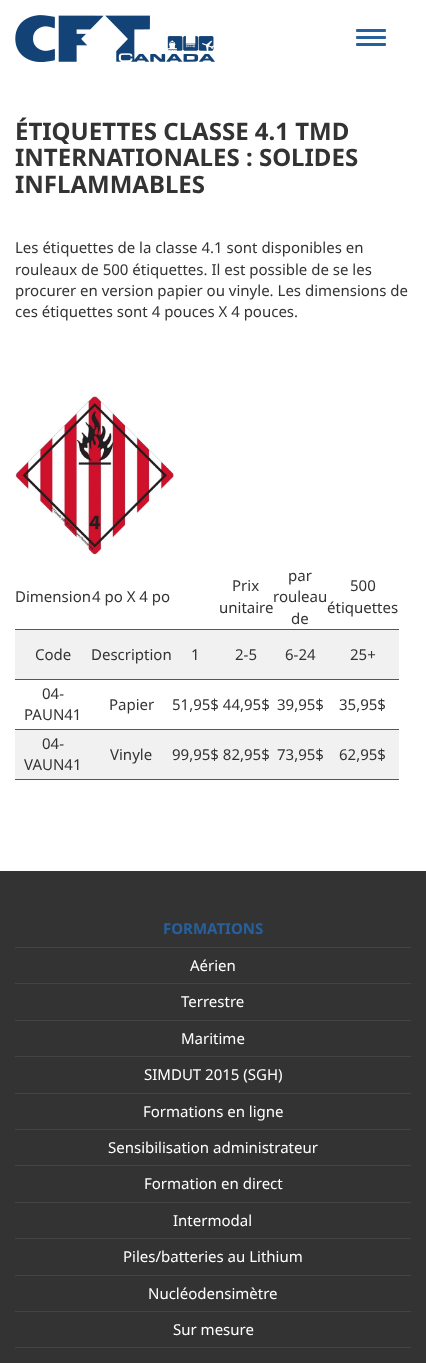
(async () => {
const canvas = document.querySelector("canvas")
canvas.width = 426
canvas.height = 1363
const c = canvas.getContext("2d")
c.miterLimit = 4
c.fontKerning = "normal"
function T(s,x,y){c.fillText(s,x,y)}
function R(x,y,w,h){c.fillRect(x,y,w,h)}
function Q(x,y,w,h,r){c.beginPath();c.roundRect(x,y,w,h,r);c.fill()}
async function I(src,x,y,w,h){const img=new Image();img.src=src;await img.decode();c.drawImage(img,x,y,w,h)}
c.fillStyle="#fff"
R(0,0,426,1363)
await I("1.png",15,15,200,47)
c.fillStyle="#28609e"
Q(356,29,30,3,1)
Q(356,36,30,3,1)
Q(356,43,30,3,1)
c.font="bold 24px Noto Sans"
c.fillStyle="#333"
T("ÉTIQUETTES CLASSE 4.1 TMD",15,140)
T("INTERNATIONALES : SOLIDES",15,166)
T("INFLAMMABLES",15,193)
c.font="15px Noto Sans"
T("Les étiquettes de la classe 4.1 sont disponibles en",15,253)
T("rouleaux de 500 étiquettes. Il est possible de se les",15,275)
T("procurer en version papier ou vinyle. Les dimensions de",15,296)
T("ces étiquettes sont 4 pouces X 4 pouces.",15,317)
await I("2.png",15,396,159,159)
c.fillStyle="#28609e"
R(15,629,384,1)
c.fillStyle="#333"
T("Dimension",15,602)
T("4 po X 4 po",92,602)
T("Prix",232,591)
T("unitaire",219,613)
T("par",288,581)
T("rouleau",273,602)
T("de",291,624)
T("500",350,591)
T("étiquettes",327,613)
c.fillStyle="#f1f1f1"
R(15,630,384,49)
c.fillStyle="#28609e"
R(15,679,384,1)
c.fillStyle="#333"
T("Code",35,660)
T("Description",91,660)
T("1",191,660)
T("2-5",235,660)
T("6-24",285,660)
T("25+",350,660)
c.fillStyle="#28609e"
R(15,729,384,1)
c.fillStyle="#333"
T("04-",42,699)
T("PAUN41",24,720)
T("Papier",109,710)
T("51,95$ 44,95$",172,710)
T("39,95$",277,710)
T("35,95$",339,710)
c.fillStyle="#f1f1f1"
R(15,730,384,49)
c.fillStyle="#28609e"
R(15,779,384,1)
c.fillStyle="#333"
T("04-",42,749)
T("VAUN41",24,770)
T("Vinyle",110,760)
T("99,95$ 82,95$",172,760)
T("73,95$",277,760)
T("62,95$",339,760)
R(0,871,426,492)
c.fillStyle="#444"
R(15,947,396,1)
c.font="bold 15px Noto Sans"
c.fillStyle="#28609e"
T("FORMATIONS",163,934)
c.fillStyle="#444"
R(15,983,396,1)
c.font="15px Noto Sans"
c.fillStyle="#fff"
T("Aérien",190,971)
c.fillStyle="#444"
R(15,1020,396,1)
c.fillStyle="#fff"
T("Terrestre",181,1007)
c.fillStyle="#444"
R(15,1056,396,1)
c.fillStyle="#fff"
T("Maritime",181,1044)
c.fillStyle="#444"
R(15,1093,396,1)
c.fillStyle="#fff"
T("SIMDUT 2015 (SGH)",144,1080)
c.fillStyle="#444"
R(15,1129,396,1)
c.fillStyle="#fff"
T("Formations en ligne",143,1117)
c.fillStyle="#444"
R(15,1165,396,1)
c.fillStyle="#fff"
T("Sensibilisation administrateur",108,1153)
c.fillStyle="#444"
R(15,1202,396,1)
c.fillStyle="#fff"
T("Formation en direct",144,1189)
c.fillStyle="#444"
R(15,1238,396,1)
c.fillStyle="#fff"
T("Intermodal",173,1226)
c.fillStyle="#444"
R(15,1275,396,1)
c.fillStyle="#fff"
T("Piles/batteries au Lithium",123,1262)
c.fillStyle="#444"
R(15,1311,396,1)
c.fillStyle="#fff"
T("Nucléodensimètre",148,1299)
c.fillStyle="#444"
R(15,1347,396,1)
c.fillStyle="#fff"
T("Sur mesure",173,1335)
})()
